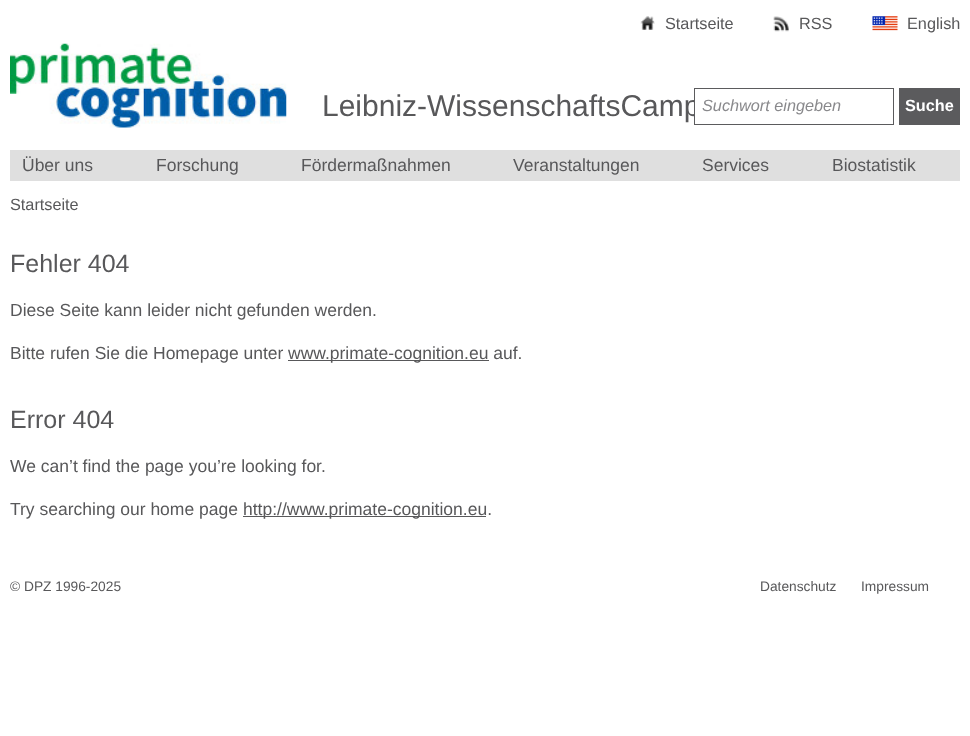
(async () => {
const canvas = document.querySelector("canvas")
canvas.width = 970
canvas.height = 736
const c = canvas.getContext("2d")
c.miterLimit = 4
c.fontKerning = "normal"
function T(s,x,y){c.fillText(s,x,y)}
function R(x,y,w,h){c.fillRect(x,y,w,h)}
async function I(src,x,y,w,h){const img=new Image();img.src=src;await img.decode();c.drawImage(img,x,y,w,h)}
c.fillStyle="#fff"
R(0,0,970,736)
await I("1.png",640,16,15,14)
c.font="16.25px Liberation Sans"
c.fillStyle="#58585a"
T("Startseite",665,29)
await I("2.png",773,16,16,16)
T("RSS",799,29)
await I("3.png",872,16,26,15)
T("English",907,29)
await I("4.png",10,43,277,85)
c.font="30px Liberation Sans"
T("Leibniz-WissenschaftsCamp",322,116)
c.fillStyle="#fff"
R(695,100,5,17)
c.strokeStyle="#5b5b5d"
c.strokeRect(694.5,88.5,199,36)
c.font="italic 16.25px Liberation Sans"
c.fillStyle="#89898c"
T("Suchwort eingeben",702,111)
c.fillStyle="#5b5b5d"
R(899,88,61,37)
c.font="bold 16.25px Liberation Sans"
c.fillStyle="#fff"
T("Suche",905,111)
c.fillStyle="#dfdfdf"
R(10,150,950,31)
c.font="17.5px Liberation Sans"
c.fillStyle="#58585a"
T("Über uns",22,171)
T("Forschung",156,171)
T("Fördermaßnahmen",301,171)
T("Veranstaltungen",513,171)
T("Services",702,171)
T("Biostatistik",832,171)
c.font="16.25px Liberation Sans"
T("Startseite",10,210)
c.font="25px Liberation Sans"
T("Fehler 404",10,272)
c.font="17.5px Liberation Sans"
T("Diese Seite kann leider nicht gefunden werden.",10,316)
T("Bitte rufen Sie die Homepage unter",10,359)
R(288,360,201,1)
T("www.primate-cognition.eu auf.",288,359)
c.font="25px Liberation Sans"
T("Error 404",10,428)
c.font="17.5px Liberation Sans"
T("We can’t find the page you’re looking for.",10,472)
T("Try searching our home page",10,515)
R(243,516,243,1)
T("http://www.primate-cognition.eu.",243,515)
c.font="13.75px Liberation Sans"
T("© DPZ 1996-2025",10,591)
T("Datenschutz",760,591)
T("Impressum",861,591)
})()
